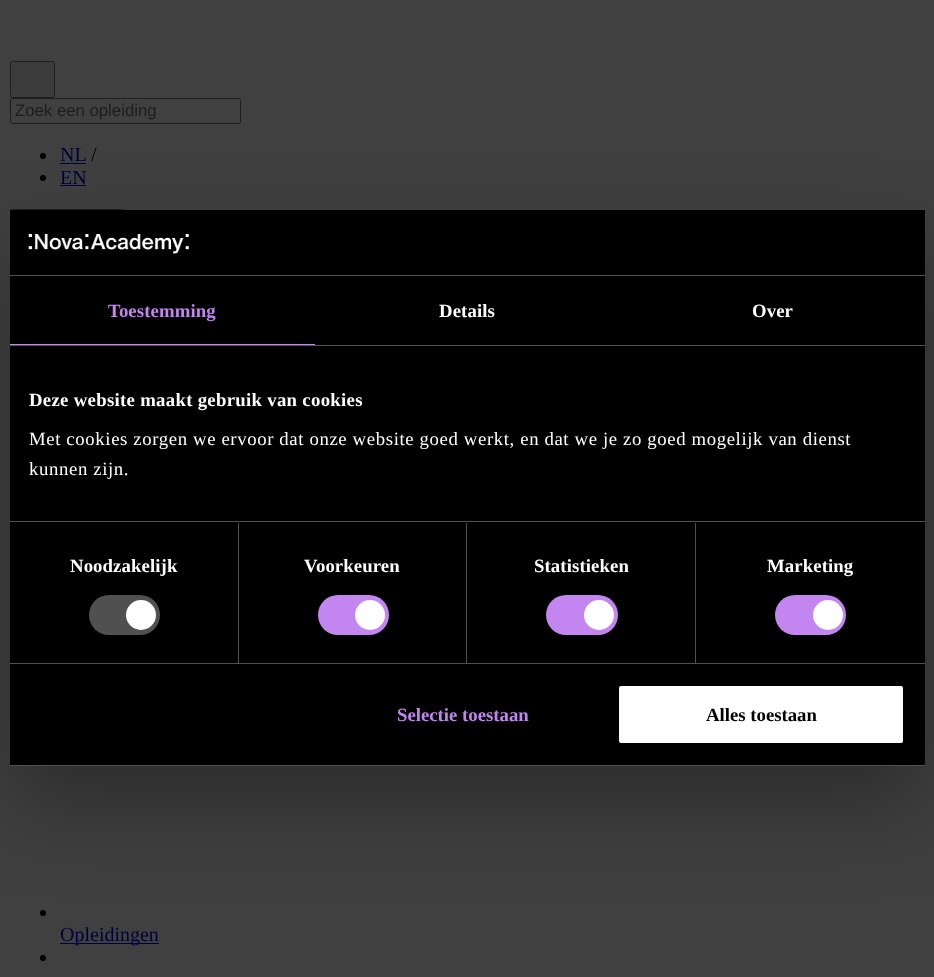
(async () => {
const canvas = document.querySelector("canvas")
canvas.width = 934
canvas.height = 977
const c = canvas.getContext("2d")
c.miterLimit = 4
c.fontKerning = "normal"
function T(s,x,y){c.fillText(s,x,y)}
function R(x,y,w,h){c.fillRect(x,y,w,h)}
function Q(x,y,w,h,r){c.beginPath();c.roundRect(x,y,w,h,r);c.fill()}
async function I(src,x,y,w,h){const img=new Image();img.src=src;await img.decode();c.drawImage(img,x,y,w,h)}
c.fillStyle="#404040"
R(0,0,934,977)
c.fillStyle="#3c3c3c"
c.beginPath()
c.roundRect(10.5,61.5,44,36,2)
c.fill()
c.strokeStyle="#1e1e1e"
c.stroke()
c.beginPath()
c.roundRect(10.5,98.5,230,25,2)
c.stroke()
c.font="16.75px Liberation Sans"
c.fillStyle="#1d1d1d"
T("Zoek een opleiding",15,116)
c.fillStyle="#000"
c.beginPath()
c.arc(43,156,3,0,7)
c.fill()
c.font="20px Liberation Serif"
c.fillStyle="#00003c"
T("NL",60,161)
R(60,163,26,1)
c.fillStyle="#000"
T("/",91,161)
c.beginPath()
c.arc(43,178,3,0,7)
c.fill()
c.fillStyle="#00003c"
T("EN",60,184)
R(60,185,26,1)
c.beginPath()
c.roundRect(10.5,209.5,114,25,2)
c.stroke()
c.fillStyle="#000"
c.beginPath()
c.arc(43,913,3,0,7)
c.fill()
c.fillStyle="#0000004d"
c.filter="blur(42.5px)"
c.beginPath()
c.rect(10,250,915,556)
c.fill()
c.filter="none"
c.fillStyle="#000"
R(10,210,915,555)
c.fillStyle="#505050"
R(10,275,915,1)
await I("1.png",28,234,161,20)
R(10,345,915,1)
c.fillStyle="#c385f0"
R(10,344,305,1)
c.letterSpacing="0.1px"
c.font="bold 18.75px Liberation Serif"
T("Toestemming",108,317)
c.fillStyle="#fff"
T("Details",439,317)
T("Over",752,317)
c.fillStyle="#505050"
R(10,521,915,1)
c.letterSpacing="0.3px"
c.fillStyle="#fff"
T("Deze website maakt gebruik van cookies",29,406)
c.letterSpacing="0.62px"
c.font="18.75px Liberation Serif"
T("Met cookies zorgen we ervoor dat onze website goed werkt, en dat we je zo goed mogelijk van dienst",29,445)
T("kunnen zijn.",29,475)
c.fillStyle="#505050"
R(10,663,915,1)
R(238,523,1,140)
c.letterSpacing="0.1px"
c.font="bold 18.75px Liberation Serif"
c.fillStyle="#fff"
T("Noodzakelijk",70,572)
c.fillStyle="#505050"
Q(89,595,71,40,20)
c.fillStyle="#fff"
c.beginPath()
c.arc(141,615,15,0,7)
c.fill()
c.fillStyle="#505050"
R(466,523,1,140)
c.fillStyle="#fff"
T("Voorkeuren",304,572)
c.fillStyle="#c385f0"
Q(318,595,71,40,20)
c.fillStyle="#fff"
c.beginPath()
c.arc(370,615,15,0,7)
c.fill()
c.fillStyle="#505050"
R(695,523,1,140)
c.fillStyle="#fff"
T("Statistieken",534,572)
c.fillStyle="#c385f0"
Q(546,595,72,40,20)
c.fillStyle="#fff"
c.beginPath()
c.arc(599,615,15,0,7)
c.fill()
T("Marketing",767,572)
c.fillStyle="#c385f0"
Q(775,595,71,40,20)
c.fillStyle="#fff"
c.beginPath()
c.arc(828,615,15,0,7)
c.fill()
c.fillStyle="#505050"
R(10,765,915,1)
c.letterSpacing="0px"
c.fillStyle="#c385f0"
T("Selectie toestaan",397,721)
c.fillStyle="#fff"
c.beginPath()
c.roundRect(617.5,684.5,287,60,3.5)
c.fill()
c.strokeStyle="#000"
c.lineWidth=3
c.stroke()
c.fillStyle="#000"
T("Alles toestaan",706,721)
c.fillStyle="#00003c"
R(60,943,99,1)
c.font="20px Liberation Serif"
T("Opleidingen",60,941)
c.fillStyle="#000"
c.beginPath()
c.arc(43,958,3,0,7)
c.fill()
})()
